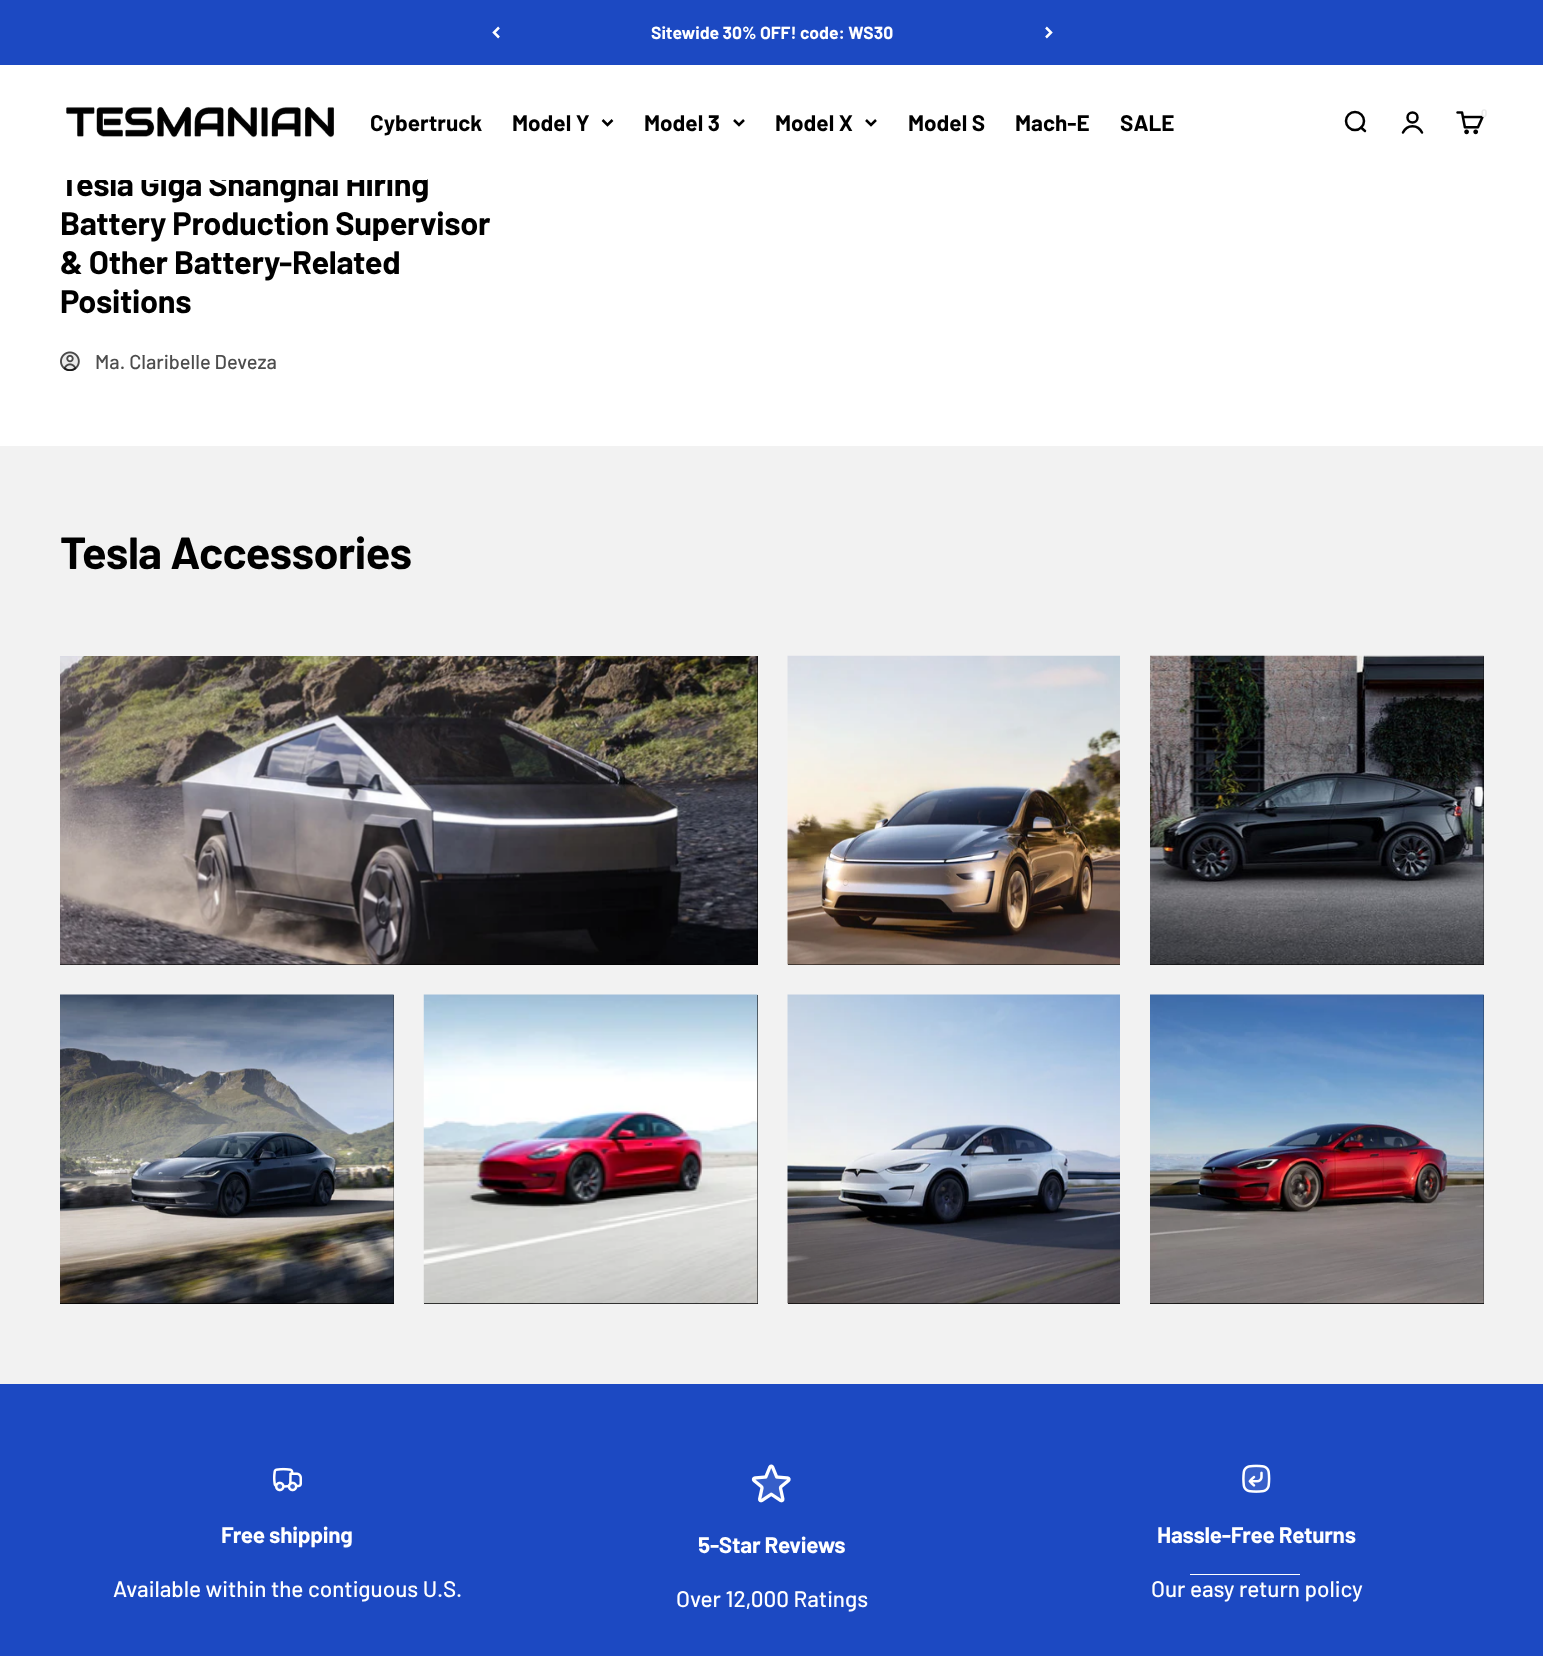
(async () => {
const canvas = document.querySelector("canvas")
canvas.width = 1543
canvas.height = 1656
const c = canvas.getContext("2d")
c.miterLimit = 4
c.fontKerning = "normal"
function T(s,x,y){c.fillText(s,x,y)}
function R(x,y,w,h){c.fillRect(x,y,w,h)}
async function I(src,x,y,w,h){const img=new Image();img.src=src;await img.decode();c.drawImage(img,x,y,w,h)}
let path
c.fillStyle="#fff"
R(0,0,1543,1656)
c.fillStyle="#1c49c2"
R(0,0,1543,65)
path = new Path2D("M499 27.5l-5 5l5 5")
c.strokeStyle="#fff"
c.lineWidth=2.5
c.stroke(path)
c.font="bold 17.5px Barlow"
c.fillStyle="#fff"
T("Sitewide 30% OFF! code: WS30",651,39)
path = new Path2D("M1046 37.5l5-5l-5-5")
c.stroke(path)
c.letterSpacing="-0.3px"
c.font="bold 32.5px Barlow"
c.fillStyle="#000"
T("Tesla Giga Shanghai Hiring",60,196)
c.fillStyle="#fff"
R(60,172,367,8)
await I("1.png",66,106,268,32)
c.beginPath()
c.arc(1355,121,9,0,7)
c.strokeStyle="#000"
c.stroke()
path = new Path2D("M1361 127.5l4 3.5")
c.lineCap="round"
c.lineJoin="round"
c.stroke(path)
c.beginPath()
c.arc(1412.5,117.5,5,0,7)
c.stroke()
path = new Path2D("M1403 132.5c4-8.5 15-8.5 19 0")
c.lineJoin="miter"
c.stroke(path)
await I("2.png",1456,111,28,24)
c.letterSpacing="0px"
c.font="bold 11px Barlow"
c.fillStyle="#eaeaea"
T("0",1481,117)
c.font="bold 22.5px Barlow"
c.fillStyle="#000"
T("Cybertruck",370,131)
T("Model Y",512,131)
path = new Path2D("M602.5 120l5 5l5-5")
c.lineCap="butt"
c.stroke(path)
T("Model 3",644,131)
path = new Path2D("M734 120l5 5l5-5")
c.stroke(path)
T("Model X",775,131)
path = new Path2D("M866 120l5 5l5-5")
c.stroke(path)
T("Model S",908,131)
T("Mach-E",1015,131)
T("SALE",1120,131)
c.letterSpacing="-0.3px"
c.font="bold 32.5px Barlow"
T("Battery Production Supervisor",60,235)
T("& Other Battery-Related",60,274)
T("Positions",60,313)
await I("3.png",60,351,20,20)
c.letterSpacing="0px"
c.font="500 20px Barlow"
c.fillStyle="#4d4d4d"
T("Ma. Claribelle Deveza",95,369)
c.fillStyle="#f2f2f2"
R(0,446,1543,938)
c.letterSpacing="-0.5px"
c.font="bold 45px Barlow"
c.fillStyle="#000"
T("Tesla Accessories",60,569)
R(60,656,698,309)
await I("4.png",60,656,698,309)
R(788,964,332,1)
await I("5.png",787,655,333,310)
R(1150,656,334,309)
await I("6.png",1150,655,334,310)
R(60,995,334,309)
await I("7.png",60,994,334,310)
R(424,995,334,309)
await I("8.png",423,994,335,310)
R(788,1303,332,1)
await I("9.png",787,994,333,310)
R(1150,995,334,309)
await I("10.png",1150,994,334,310)
c.fillStyle="#1c49c2"
R(0,1384,1543,272)
await I("11.png",273,1467,29,25)
c.letterSpacing="-0.25px"
c.font="bold 22.5px Barlow"
c.fillStyle="#fff"
T("Free shipping",221,1543)
c.letterSpacing="0px"
c.font="500 22.5px Barlow"
T("Available within the contiguous U.S.",113,1597)
await I("12.png",751,1464,40,39)
c.letterSpacing="-0.25px"
c.font="bold 22.5px Barlow"
T("5-Star Reviews",698,1553)
c.letterSpacing="0px"
c.font="500 22.5px Barlow"
T("Over 12,000 Ratings",676,1607)
await I("13.png",1242,1464,29,29)
c.letterSpacing="-0.25px"
c.font="bold 22.5px Barlow"
T("Hassle-Free Returns",1157,1543)
R(1190,1574,110,1)
c.letterSpacing="0px"
c.font="500 22.5px Barlow"
T("Our easy return policy",1151,1597)
})()
